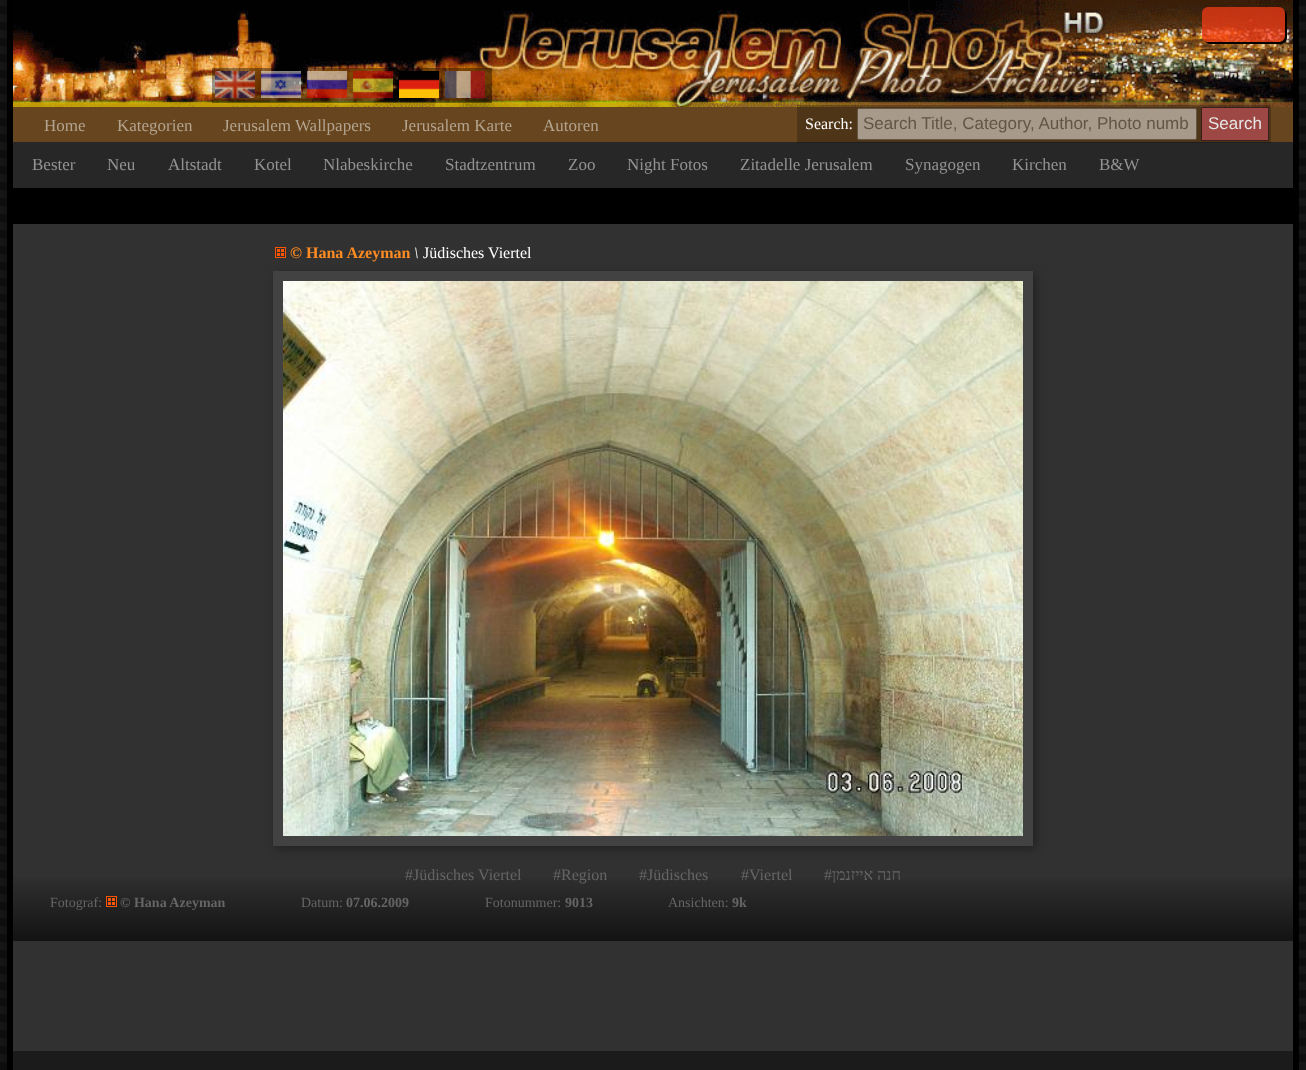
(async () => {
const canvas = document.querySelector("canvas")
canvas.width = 1306
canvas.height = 1070
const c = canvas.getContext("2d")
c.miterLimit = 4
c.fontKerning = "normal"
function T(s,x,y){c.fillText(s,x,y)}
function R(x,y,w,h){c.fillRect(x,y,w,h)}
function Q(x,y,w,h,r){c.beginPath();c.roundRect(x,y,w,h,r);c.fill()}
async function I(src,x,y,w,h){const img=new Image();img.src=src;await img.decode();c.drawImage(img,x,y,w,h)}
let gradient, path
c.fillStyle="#fff"
R(0,0,1306,1070)
await I("1.png",0,0,1306,1070)
await I("2.png",13,0,1280,107)
c.fillStyle="#67461f"
R(13,107,1280,35)
c.fillStyle="#272727"
R(13,142,1280,46)
c.fillStyle="#0000003b"
R(797,105,474,38)
c.font="16px Liberation Serif"
c.fillStyle="#fff"
T("Search:",805,129)
c.fillStyle="#a79a8b"
c.beginPath()
c.roundRect(857.5,108.5,339,31,1.5)
c.fill()
c.strokeStyle="#635647"
c.stroke()
c.font="17px Liberation Sans"
c.fillStyle="#625546"
T("Search Title, Category, Author, Photo numb",863,129)
c.fillStyle="#9d4844"
c.beginPath()
c.rect(1201.5,107.5,67,33)
c.fill()
c.strokeStyle="#381e1c"
c.stroke()
c.fillStyle="#e6e6e6"
T("Search",1208,129)
c.fillStyle="#000"
path = new Path2D("M1205 41c1 2 3 3 5 3h71c3 0 6-3 6-6v-23c0-2-1-4-3-5l1 3v23c0 3-3 6-6 6h-71z")
c.fill(path)
c.fillStyle="#fa3b16b8"
Q(1202,7,83,35,6)
c.fillStyle="#00000061"
R(212,68,280,35)
await I("3.png",215,71,40,27)
await I("4.png",261,71,40,27)
await I("5.png",307,71,40,27)
await I("6.png",353,71,40,27)
await I("7.png",399,71,40,27)
await I("8.png",445,71,40,27)
c.font="17px Liberation Serif"
c.fillStyle="#b3a38f"
T("Home",44,131)
T("Kategorien",117,131)
T("Jerusalem Wallpapers",223,131)
T("Jerusalem Karte",402,131)
T("Autoren",543,131)
c.fillStyle="#939393"
T("Bester",32,170)
T("Neu",107,170)
T("Altstadt",168,170)
T("Kotel",254,170)
T("Nlabeskirche",323,170)
T("Stadtzentrum",445,170)
T("Zoo",568,170)
T("Night Fotos",627,170)
T("Zitadelle Jerusalem",740,170)
T("Synagogen",905,170)
T("Kirchen",1012,170)
T("B&W",1099,170)
c.fillStyle="#313131"
R(13,224,1280,827)
await I("9.png",275,247,11,11)
c.font="bold 16px Liberation Serif"
c.fillStyle="#ff8c22"
T("© Hana Azeyman",290,258)
c.font="italic 16px Liberation Serif"
c.fillStyle="#fff"
T("\\",414,258)
c.font="16px Liberation Serif"
T("Jüdisches Viertel",423,258)
c.fillStyle="#00000052"
c.filter="blur(5px)"
c.beginPath()
c.rect(276,274,760,575)
c.fill()
c.filter="none"
c.strokeStyle="#424242"
c.lineWidth=10
c.strokeRect(278,276,750,565)
await I("10.png",283,281,740,555)
gradient = c.createLinearGradient(653,875,653,941)
gradient.addColorStop(0,"#303030")
gradient.addColorStop(1,"#131313")
c.fillStyle = gradient
R(13,878,1280,63)
c.fillStyle="#656565"
T("#Jüdisches Viertel",405,880)
T("#Region",553,880)
T("#Jüdisches",639,880)
T("#Viertel",741,880)
T("#",824,880)
c.direction="rtl"
T("חנה אייזנמן",901,880)
c.direction="ltr"
c.font="14px Liberation Serif"
T("Fotograf:",50,907)
await I("11.png",106,896,11,11)
c.font="bold 14px Liberation Serif"
T("© Hana Azeyman",120,907)
c.font="14px Liberation Serif"
T("Datum:",301,907)
c.font="bold 14px Liberation Serif"
T("07.06.2009",346,907)
c.font="14px Liberation Serif"
T("Fotonummer:",485,907)
c.font="bold 14px Liberation Serif"
T("9013",565,907)
c.font="14px Liberation Serif"
T("Ansichten:",668,907)
c.font="bold 14px Liberation Serif"
T("9k",732,907)
c.fillStyle="#1b1b1b"
R(13,1051,1280,19)
})()
